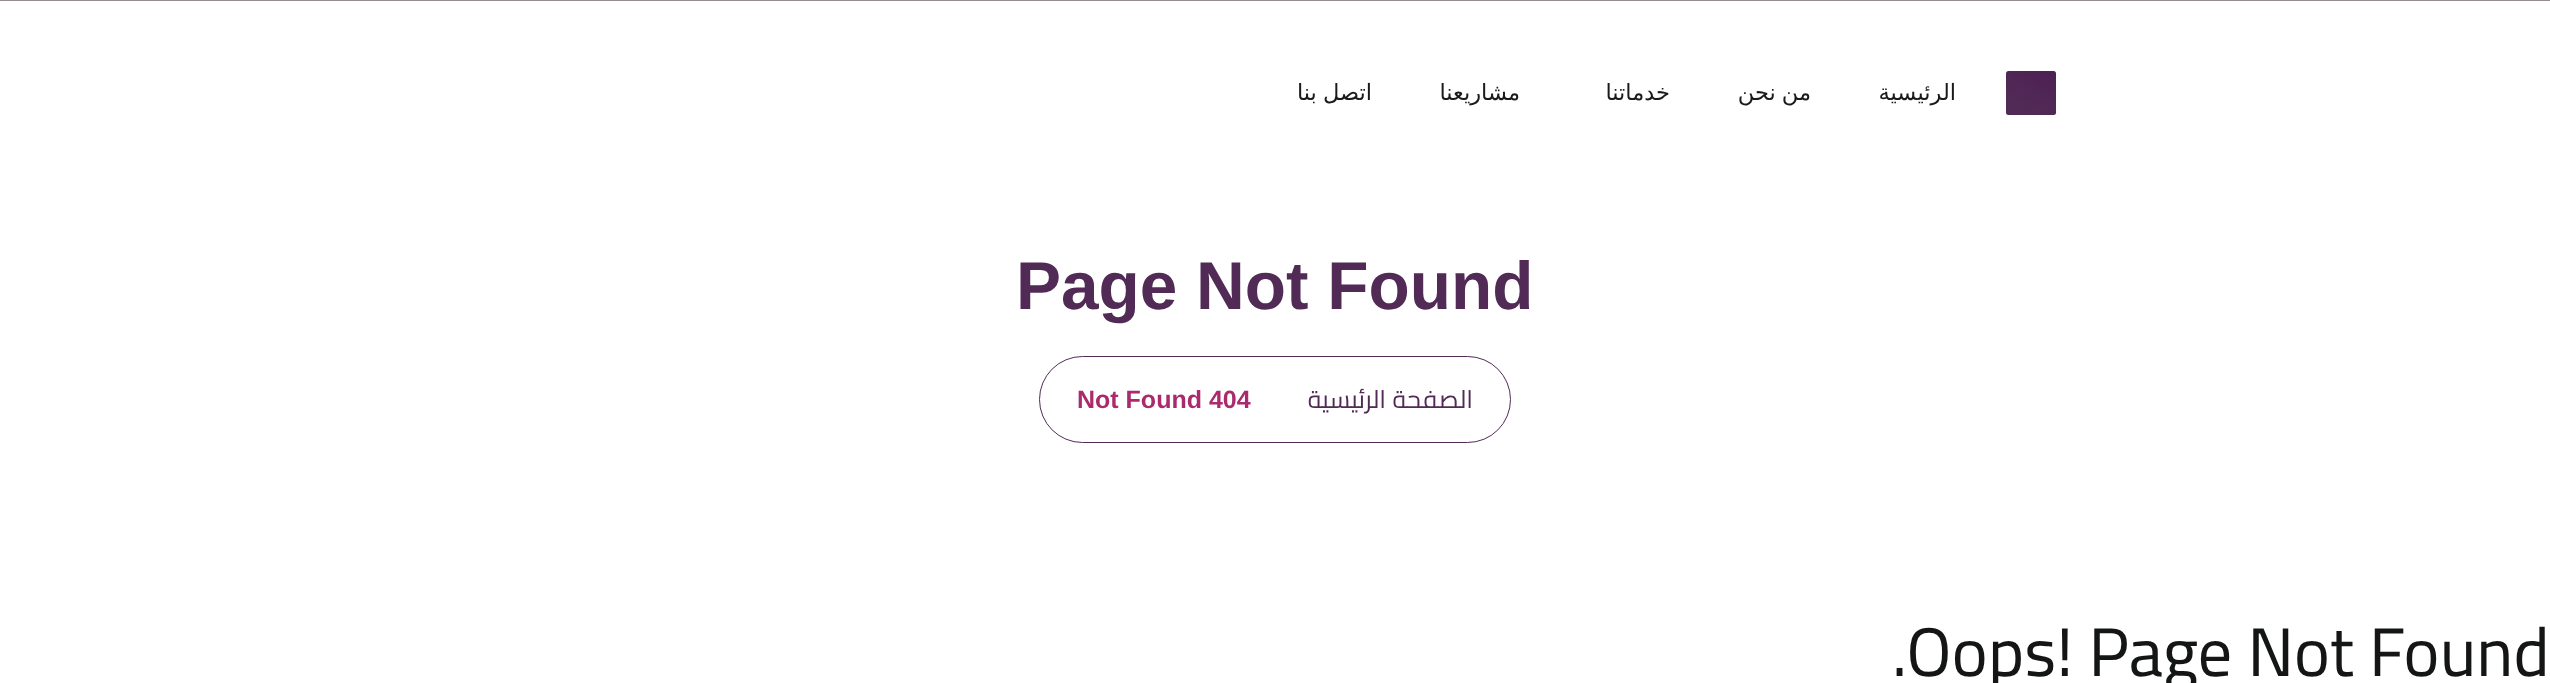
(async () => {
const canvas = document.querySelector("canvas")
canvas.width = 2550
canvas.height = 683
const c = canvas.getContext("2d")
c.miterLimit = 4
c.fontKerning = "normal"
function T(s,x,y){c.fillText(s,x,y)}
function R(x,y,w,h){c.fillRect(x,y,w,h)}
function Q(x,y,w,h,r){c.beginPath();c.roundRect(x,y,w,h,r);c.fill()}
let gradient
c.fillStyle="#fff"
R(0,0,2550,683)
c.fillStyle="#998c8c"
R(0,0,2550,1)
gradient = c.createLinearGradient(2014,120,2048,66)
gradient.addColorStop(.2,"#512b56")
gradient.addColorStop(1,"#4e2054")
c.fillStyle = gradient
Q(2006,71,50,44,2.5)
c.direction="rtl"
c.font="22.5px DejaVu Sans"
c.fillStyle="#1b1a1a"
T("الرئيسية",1956,100)
c.wordSpacing="-1px"
T("من نحن",1811,100)
c.wordSpacing="0px"
T("خدماتنا",1670,100)
T("مشاريعنا",1520,100)
c.wordSpacing="-1px"
T("اتصل بنا",1372,100)
c.wordSpacing="0px"
c.direction="ltr"
c.font="bold 67.5px Liberation Sans"
c.fillStyle="#512b56"
T("Page Not Found",1016,309)
c.beginPath()
c.roundRect(1039.5,356.5,471,86,43)
c.strokeStyle="#512b56"
c.stroke()
c.wordSpacing="1px"
c.direction="rtl"
c.font="25px 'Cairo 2'"
T("الصفحة الرئيسية",1473,408)
c.wordSpacing="0px"
c.direction="ltr"
c.font="bold 25px Liberation Sans"
c.fillStyle="#ab2a6d"
T("Not Found 404",1077,408)
c.font="68.75px Cairo"
c.fillStyle="#141515"
T(".Oops! Page Not Found",1892,676)
})()
